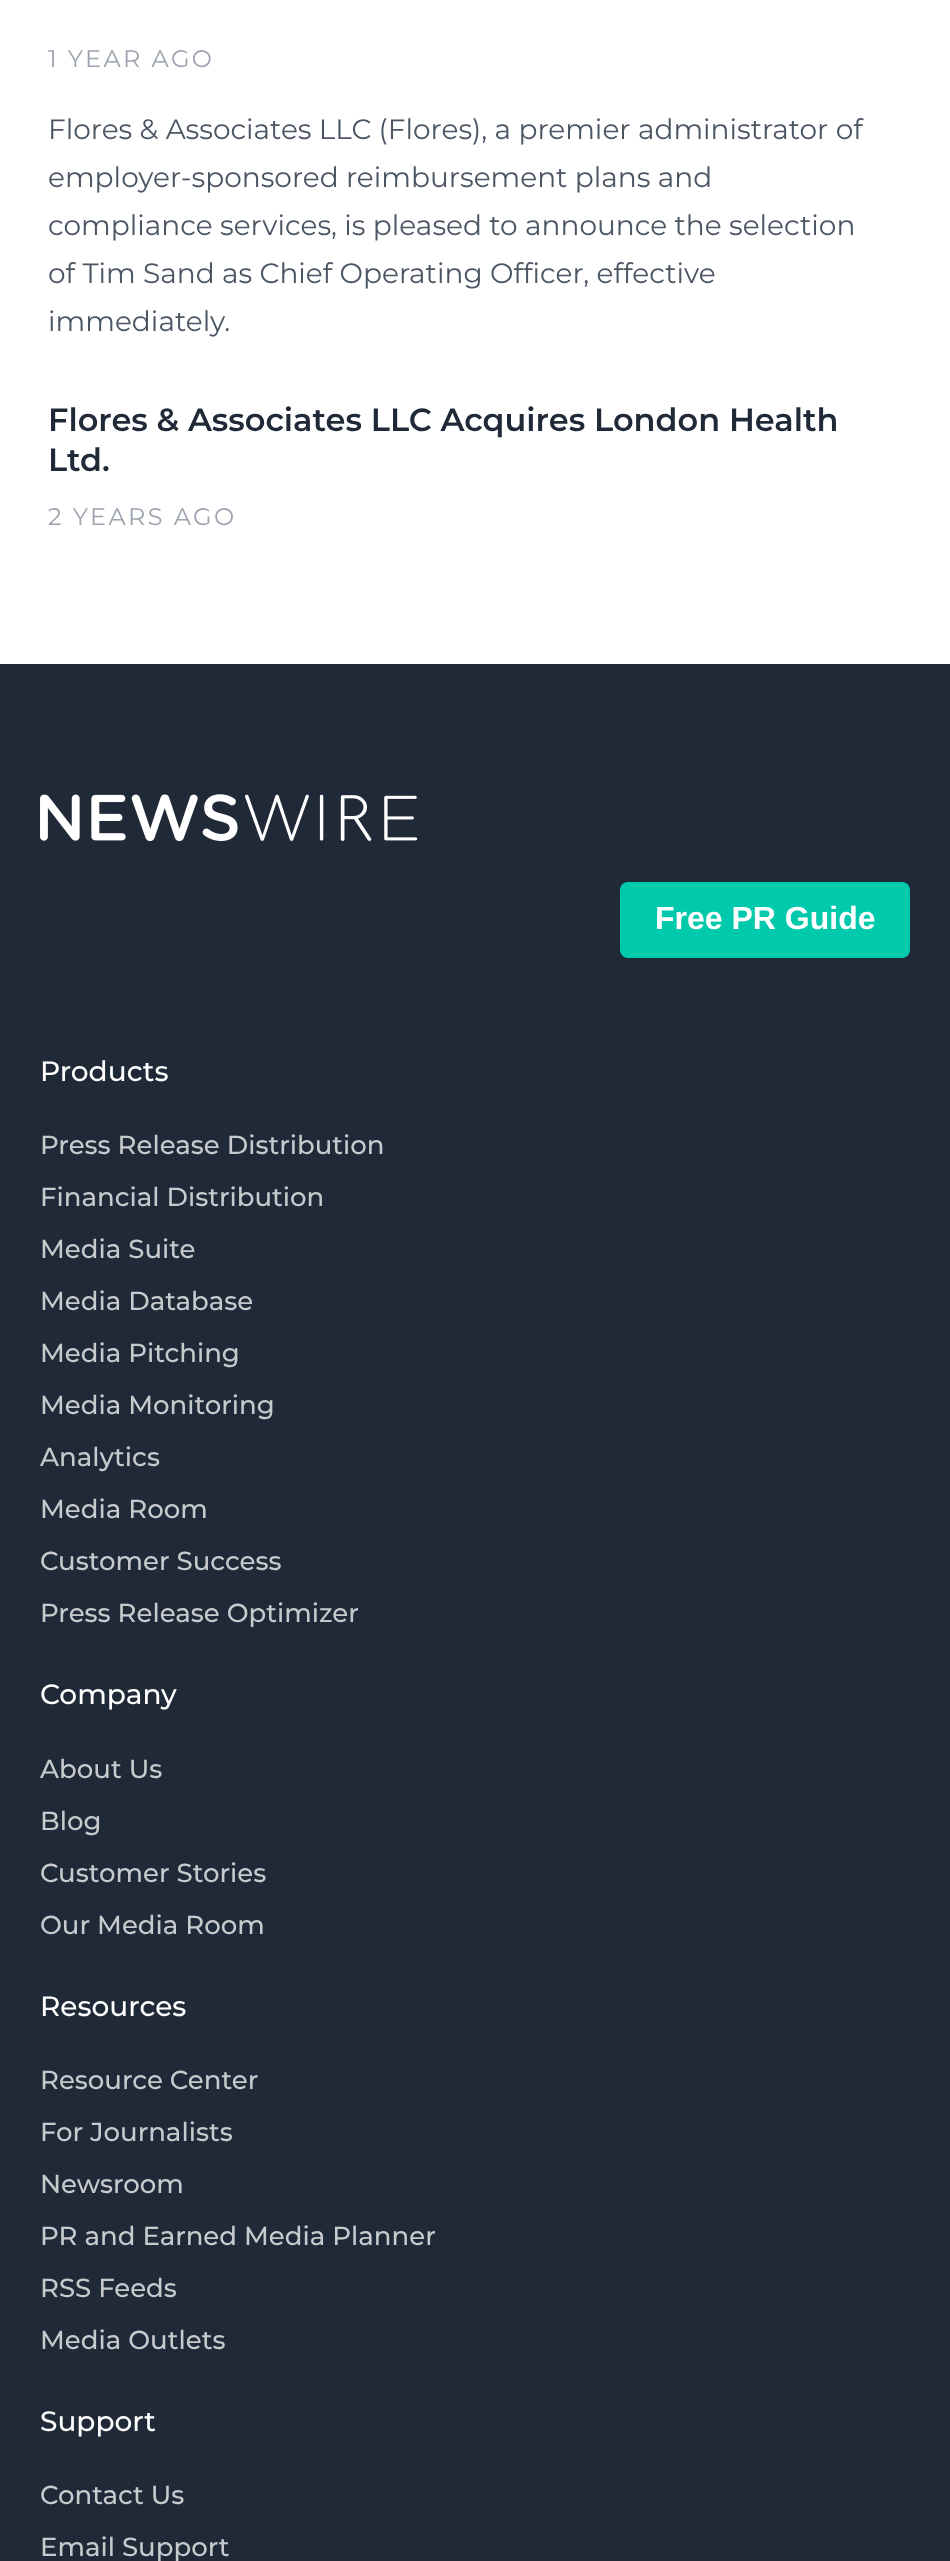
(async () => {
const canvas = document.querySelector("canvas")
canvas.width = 950
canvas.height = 2561
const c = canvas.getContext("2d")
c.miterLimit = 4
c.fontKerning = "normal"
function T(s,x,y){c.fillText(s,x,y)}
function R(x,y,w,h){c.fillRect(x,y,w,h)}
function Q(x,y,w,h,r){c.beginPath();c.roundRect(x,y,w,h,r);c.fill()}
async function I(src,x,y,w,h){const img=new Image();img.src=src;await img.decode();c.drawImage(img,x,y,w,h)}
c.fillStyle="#fff"
R(0,0,950,2561)
c.letterSpacing="2.4px"
c.font="24px Montserrat"
c.fillStyle="#9ca3af"
T("1 YEAR AGO",48,67)
c.letterSpacing="0px"
c.font="28px Montserrat"
c.fillStyle="#4b5563"
T("Flores & Associates LLC (Flores), a premier administrator of",48,139)
T("employer-sponsored reimbursement plans and",48,187)
T("compliance services, is pleased to announce the selection",48,235)
T("of Tim Sand as Chief Operating Officer, effective",48,283)
T("immediately.",48,331)
c.font="600 32px Montserrat"
c.fillStyle="#1f2937"
T("Flores & Associates LLC Acquires London Health",48,431)
T("Ltd.",48,471)
c.letterSpacing="2.4px"
c.font="24px Montserrat"
c.fillStyle="#9ca3af"
T("2 YEARS AGO",48,525)
c.fillStyle="#1f2937"
R(0,664,950,1897)
await I("1.png",40,794,378,47)
c.fillStyle="#00caab"
Q(620,882,290,76,8)
c.letterSpacing="0px"
c.font="bold 32px Liberation Sans"
c.fillStyle="#fff"
T("Free PR Guide",655,929)
c.font="500 28px Montserrat"
T("Products",40,1081)
c.font="500 26px Montserrat"
c.fillStyle="#c7cacd"
T("Press Release Distribution",40,1154)
T("Financial Distribution",40,1206)
T("Media Suite",40,1258)
T("Media Database",40,1310)
T("Media Pitching",40,1362)
T("Media Monitoring",40,1414)
T("Analytics",40,1466)
T("Media Room",40,1518)
T("Customer Success",40,1570)
T("Press Release Optimizer",40,1622)
c.font="500 28px Montserrat"
c.fillStyle="#fff"
T("Company",40,1704)
c.font="500 26px Montserrat"
c.fillStyle="#c7cacd"
T("About Us",40,1778)
T("Blog",40,1830)
T("Customer Stories",40,1882)
T("Our Media Room",40,1934)
c.font="500 28px Montserrat"
c.fillStyle="#fff"
T("Resources",40,2016)
c.font="500 26px Montserrat"
c.fillStyle="#c7cacd"
T("Resource Center",40,2089)
T("For Journalists",40,2141)
T("Newsroom",40,2193)
T("PR and Earned Media Planner",40,2245)
T("RSS Feeds",40,2297)
T("Media Outlets",40,2349)
c.font="500 28px Montserrat"
c.fillStyle="#fff"
T("Support",40,2431)
c.font="500 26px Montserrat"
c.fillStyle="#c7cacd"
T("Contact Us",40,2504)
T("Email Support",40,2556)
})()
